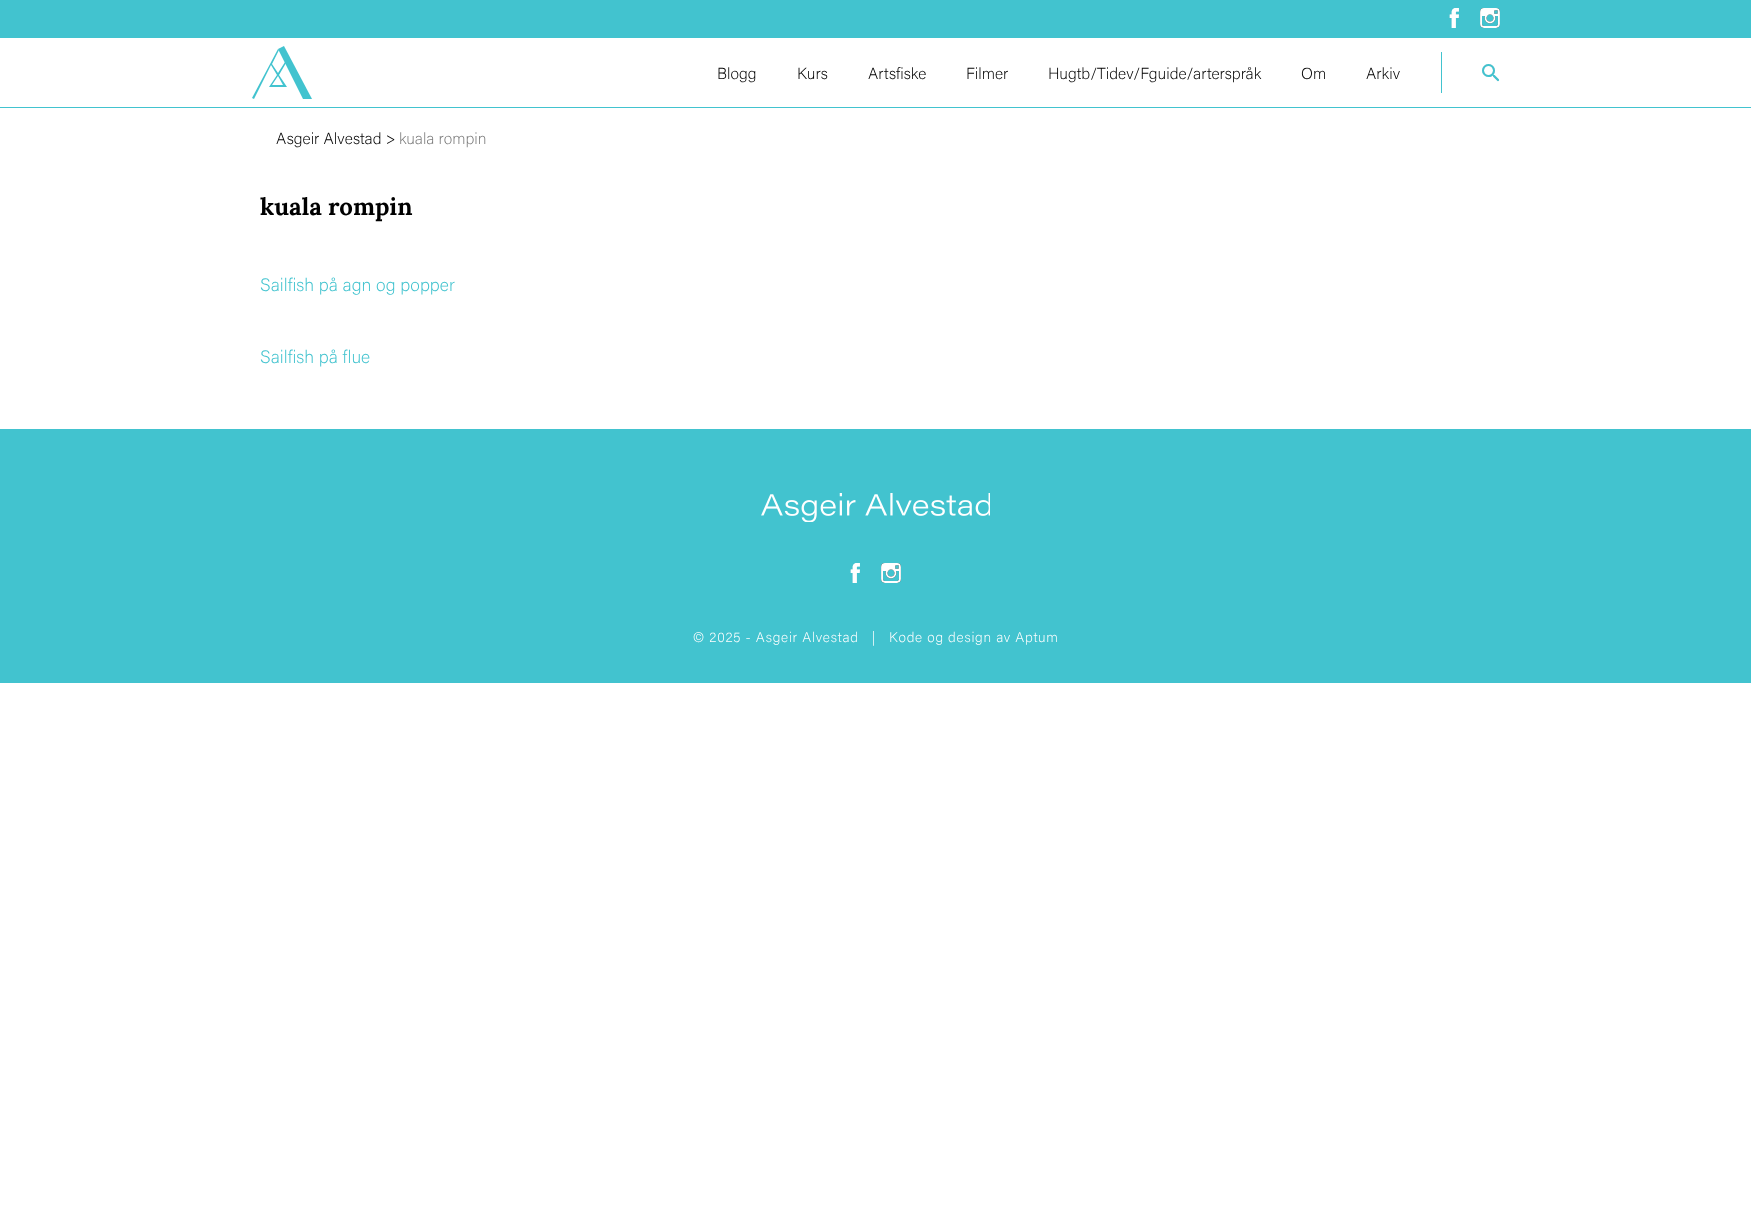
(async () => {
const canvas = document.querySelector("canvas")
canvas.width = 1751
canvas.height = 1223
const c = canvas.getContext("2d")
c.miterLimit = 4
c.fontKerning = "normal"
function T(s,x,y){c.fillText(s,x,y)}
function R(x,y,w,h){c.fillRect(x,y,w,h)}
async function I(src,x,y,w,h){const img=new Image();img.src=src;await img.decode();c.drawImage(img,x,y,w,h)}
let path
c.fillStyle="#fff"
R(0,0,1751,1223)
c.fillStyle="#42c3cf"
R(0,0,1751,38)
await I("1.png",1449,8,10,20)
await I("2.png",1480,8,20,20)
path = new Path2D("M312 99h-9l-25-50l6-3z")
c.fill(path)
path = new Path2D("M269 87h18l-8-12l7-12l-1-1l-7 11l-6-9l7-14l-1-1l-26 49l2 1l17-34l6 10zm14-2h-11l6-9z")
c.fill(path)
c.font="200 16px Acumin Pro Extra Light"
c.fillStyle="#000"
T("Blogg",717,79)
T("Kurs",797,79)
T("Artsfiske",868,79)
T("Filmer",966,79)
T("Hugtb/Tidev/Fguide/arterspråk",1048,79)
T("Om",1301,79)
T("Arkiv",1366,79)
c.fillStyle="#42c3cf"
R(1441,52,1,41)
await I("3.png",1482,64,18,18)
R(0,107,1751,1)
c.fillStyle="#000"
T("Asgeir Alvestad >",276,144)
c.fillStyle="#7b7b7b"
T("kuala rompin",399,144)
c.font="bold 24px Lora"
c.fillStyle="#000"
T("kuala rompin",260,215)
c.font="200 18px Acumin Pro Extra Light"
c.fillStyle="#42c3cf"
T("Sailfish på agn og popper",260,291)
T("Sailfish på flue",260,363)
R(0,429,1751,254)
await I("4.png",761,493,229,29)
await I("1.png",850,563,10,20)
await I("2.png",881,563,20,20)
c.letterSpacing="0.7px"
c.font="200 14px Acumin Pro Extra Light"
c.fillStyle="#fff"
T("© 2025 - Asgeir Alvestad   |",693,642)
T("Kode og design av Aptum",889,642)
})()
